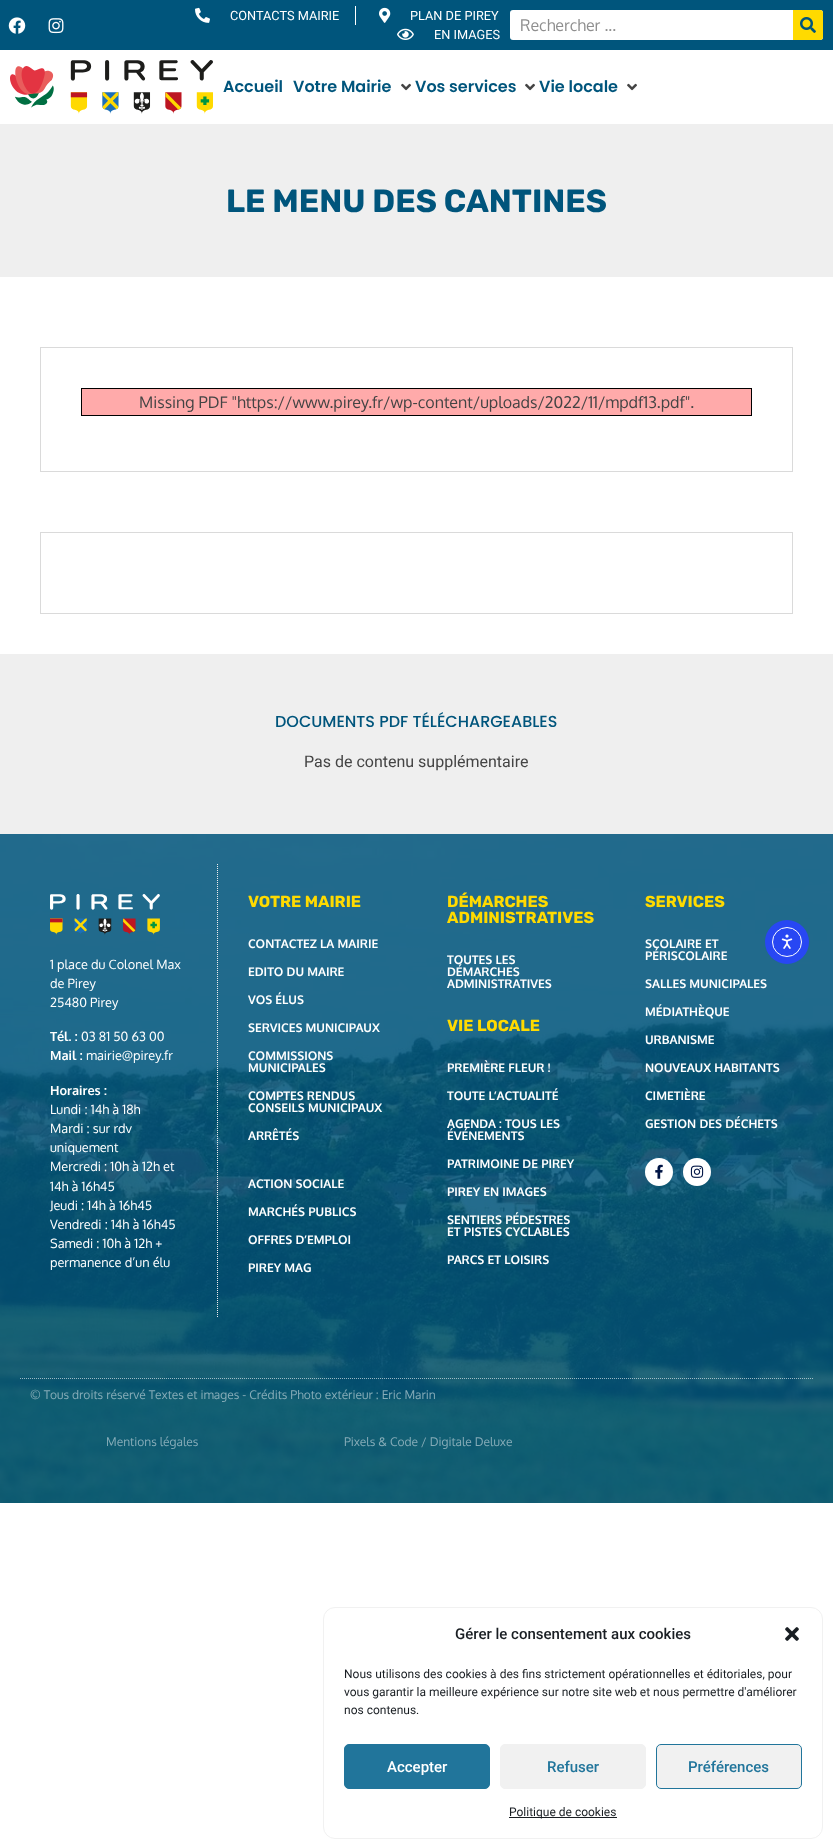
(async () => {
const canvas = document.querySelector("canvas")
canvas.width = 833
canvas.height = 1839
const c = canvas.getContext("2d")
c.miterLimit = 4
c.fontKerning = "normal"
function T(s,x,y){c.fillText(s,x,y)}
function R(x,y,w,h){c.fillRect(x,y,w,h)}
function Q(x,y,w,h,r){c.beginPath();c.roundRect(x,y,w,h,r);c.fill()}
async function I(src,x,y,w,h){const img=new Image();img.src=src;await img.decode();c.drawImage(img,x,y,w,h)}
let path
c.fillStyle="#fff"
R(0,0,833,1839)
c.fillStyle="#00557c"
R(0,0,833,50)
await I("1.png",8,17,18,17)
await I("2.png",48,18,16,16)
await I("3.png",195,7,15,16)
c.font="12.75px Roboto"
c.fillStyle="#fff"
T("CONTACTS MAIRIE",230,20)
R(355,6,1,19)
await I("4.png",379,7,12,16)
T("PLAN DE PIREY",410,20)
await I("5.png",397,28,17,12)
T("EN IMAGES",434,39)
Q(510,10,313,30,3)
c.font="16px Oxygen"
c.fillStyle="#8f8f8f"
T("Rechercher ...",520,31)
c.fillStyle="#ffda00"
c.beginPath()
c.roundRect(793,10,30,30,[0,3,3,0])
c.fill()
await I("6.png",800,17,16,16)
c.fillStyle="#efefef"
R(0,124,833,153)
await I("7.png",10,60,203,54)
c.font="600 16px Poppins"
c.fillStyle="#00557c"
T("Accueil",223,92)
T("Votre Mairie",293,92)
await I("8.png",401,83,10,8)
T("Vos services",415,92)
await I("8.png",525,83,10,8)
T("Vie locale",539,92)
await I("8.png",627,83,10,8)
c.font="bold 32px Rubik"
T("LE MENU DES CANTINES",226,212)
c.strokeStyle="#dadada"
c.strokeRect(40.5,347.5,752,124)
c.strokeStyle="#000"
c.strokeRect(81.5,388.5,670,27)
c.fillStyle="#faa"
R(82,389,669,26)
c.font="16px Oxygen"
c.fillStyle="#444"
T("Missing PDF \"https://www.pirey.fr/wp-content/uploads/2022/11/mpdf13.pdf\".",139,408)
c.strokeStyle="#dadada"
c.strokeRect(40.5,532.5,752,81)
c.fillStyle="#efefef"
R(0,654,833,180)
c.font="500 16px Poppins"
c.fillStyle="#00557c"
T("DOCUMENTS PDF TÉLÉCHARGEABLES",275,727)
c.font="16px Roboto"
c.fillStyle="#444"
T("Pas de contenu supplémentaire",304,767)
await I("9.png",0,834,833,669)
path = new Path2D("M217.5 864v454")
c.strokeStyle="#efefef"
c.setLineDash([1,1])
c.stroke(path)
await I("10.png",50,894,110,41)
c.font="12.75px Oxygen"
c.fillStyle="#fff"
T("1 place du Colonel Max",50,969)
T("de Pirey",50,988)
T("25480 Pirey",50,1007)
c.font="bold 12.75px Oxygen"
T("Tél. :",50,1041)
c.font="12.75px Oxygen"
T("03 81 50 63 00",81,1041)
c.font="bold 12.75px Oxygen"
T("Mail :",50,1060)
c.font="12.75px Oxygen"
T("mairie@pirey.fr",86,1060)
c.font="bold 12.75px Oxygen"
T("Horaires :",50,1095)
c.font="12.75px Oxygen"
T("Lundi : 14h à 18h",50,1114)
T("Mardi : sur rdv",50,1133)
T("uniquement",50,1152)
T("Mercredi : 10h à 12h et",50,1171)
T("14h à 16h45",50,1191)
T("Jeudi : 14h à 16h45",50,1210)
T("Vendredi : 14h à 16h45",50,1229)
T("Samedi : 10h à 12h +",50,1248)
T("permanence d’un élu",50,1267)
c.font="bold 16px Rubik"
c.fillStyle="#ffda00"
T("VOTRE MAIRIE",248,907)
c.font="bold 12px Oxygen"
c.fillStyle="#fff"
T("CONTACTEZ LA MAIRIE",248,948)
T("EDITO DU MAIRE",248,976)
T("VOS ÉLUS",248,1004)
T("SERVICES MUNICIPAUX",248,1032)
T("COMMISSIONS",248,1060)
T("MUNICIPALES",248,1072)
T("COMPTES RENDUS",248,1100)
T("CONSEILS MUNICIPAUX",248,1112)
T("ARRÊTÉS",248,1140)
T("ACTION SOCIALE",248,1188)
T("MARCHÉS PUBLICS",248,1216)
T("OFFRES D’EMPLOI",248,1244)
T("PIREY MAG",248,1272)
c.font="bold 16px Rubik"
c.fillStyle="#ffda00"
T("DÉMARCHES",447,907)
T("ADMINISTRATIVES",447,923)
c.font="bold 12px Oxygen"
c.fillStyle="#fff"
T("TOUTES LES",447,964)
T("DÉMARCHES",447,976)
T("ADMINISTRATIVES",447,988)
c.font="bold 16px Rubik"
c.fillStyle="#ffda00"
T("VIE LOCALE",447,1031)
c.font="bold 12px Oxygen"
c.fillStyle="#fff"
T("PREMIÈRE FLEUR !",447,1072)
T("TOUTE L’ACTUALITÉ",447,1100)
T("AGENDA : TOUS LES",447,1128)
T("ÉVÉNEMENTS",447,1140)
T("PATRIMOINE DE PIREY",447,1168)
T("PIREY EN IMAGES",447,1196)
T("SENTIERS PÉDESTRES",447,1224)
T("ET PISTES CYCLABLES",447,1236)
T("PARCS ET LOISIRS",447,1264)
c.font="bold 16px Rubik"
c.fillStyle="#ffda00"
T("SERVICES",645,907)
c.font="bold 12px Oxygen"
c.fillStyle="#fff"
T("SCOLAIRE ET",645,948)
T("PÉRISCOLAIRE",645,960)
T("SALLES MUNICIPALES",645,988)
T("MÉDIATHÈQUE",645,1016)
T("URBANISME",645,1044)
T("NOUVEAUX HABITANTS",645,1072)
T("CIMETIÈRE",645,1100)
T("GESTION DES DÉCHETS",645,1128)
c.beginPath()
c.arc(659,1172,14,0,7)
c.fill()
await I("11.png",655,1164,8,15)
c.beginPath()
c.arc(697,1172,14,0,7)
c.fill()
await I("12.png",690,1165,14,13)
path = new Path2D("M20 1378.5h793")
c.strokeStyle="#ffffff96"
c.stroke(path)
c.font="12px Oxygen"
c.fillStyle="#86acb8"
T("© Tous droits réservé Textes et images - Crédits Photo extérieur : Eric Marin",30,1399)
T("Mentions légales",106,1446)
T("Pixels & Code / Digitale Deluxe",344,1446)
c.fillStyle="#2847f3"
c.beginPath()
c.arc(787,942,22,0,7)
c.fill()
c.beginPath()
c.arc(787,942,14.5,0,7)
c.strokeStyle="#fff"
c.setLineDash([])
c.stroke()
await I("13.png",781,934,12,15)
c.beginPath()
c.roundRect(323.5,1607.5,499,231,11.5)
c.strokeStyle="#f1f1f1"
c.stroke()
c.font="500 15px Roboto"
c.fillStyle="#191e23"
T("Gérer le consentement aux cookies",455,1639)
await I("14.png",785,1627,14,14)
c.font="12px Roboto"
T("Nous utilisons des cookies à des fins strictement opérationnelles et éditoriales, pour",344,1678)
T("vous garantir la meilleure expérience sur notre site web et nous permettre d'améliorer",344,1696)
T("nos contenus.",344,1714)
c.fillStyle="#21759b"
c.beginPath()
c.roundRect(344.5,1744.5,145,44,4.5)
c.fill()
c.strokeStyle="#21759b"
c.stroke()
c.font="500 15px Roboto"
c.fillStyle="#fff"
T("Accepter",387,1772)
c.fillStyle="#f1f1f1"
c.beginPath()
c.roundRect(500.5,1744.5,145,44,4.5)
c.fill()
c.strokeStyle="#f1f1f1"
c.stroke()
c.fillStyle="#21759b"
T("Refuser",547,1772)
c.fillStyle="#f1f1f1"
c.beginPath()
c.roundRect(656.5,1744.5,145,44,4.5)
c.fill()
c.strokeStyle="#21759b"
c.stroke()
c.fillStyle="#21759b"
T("Préférences",688,1772)
c.fillStyle="#191e23"
R(509,1817,108,1)
c.font="12px Roboto"
T("Politique de cookies",509,1816)
})()
